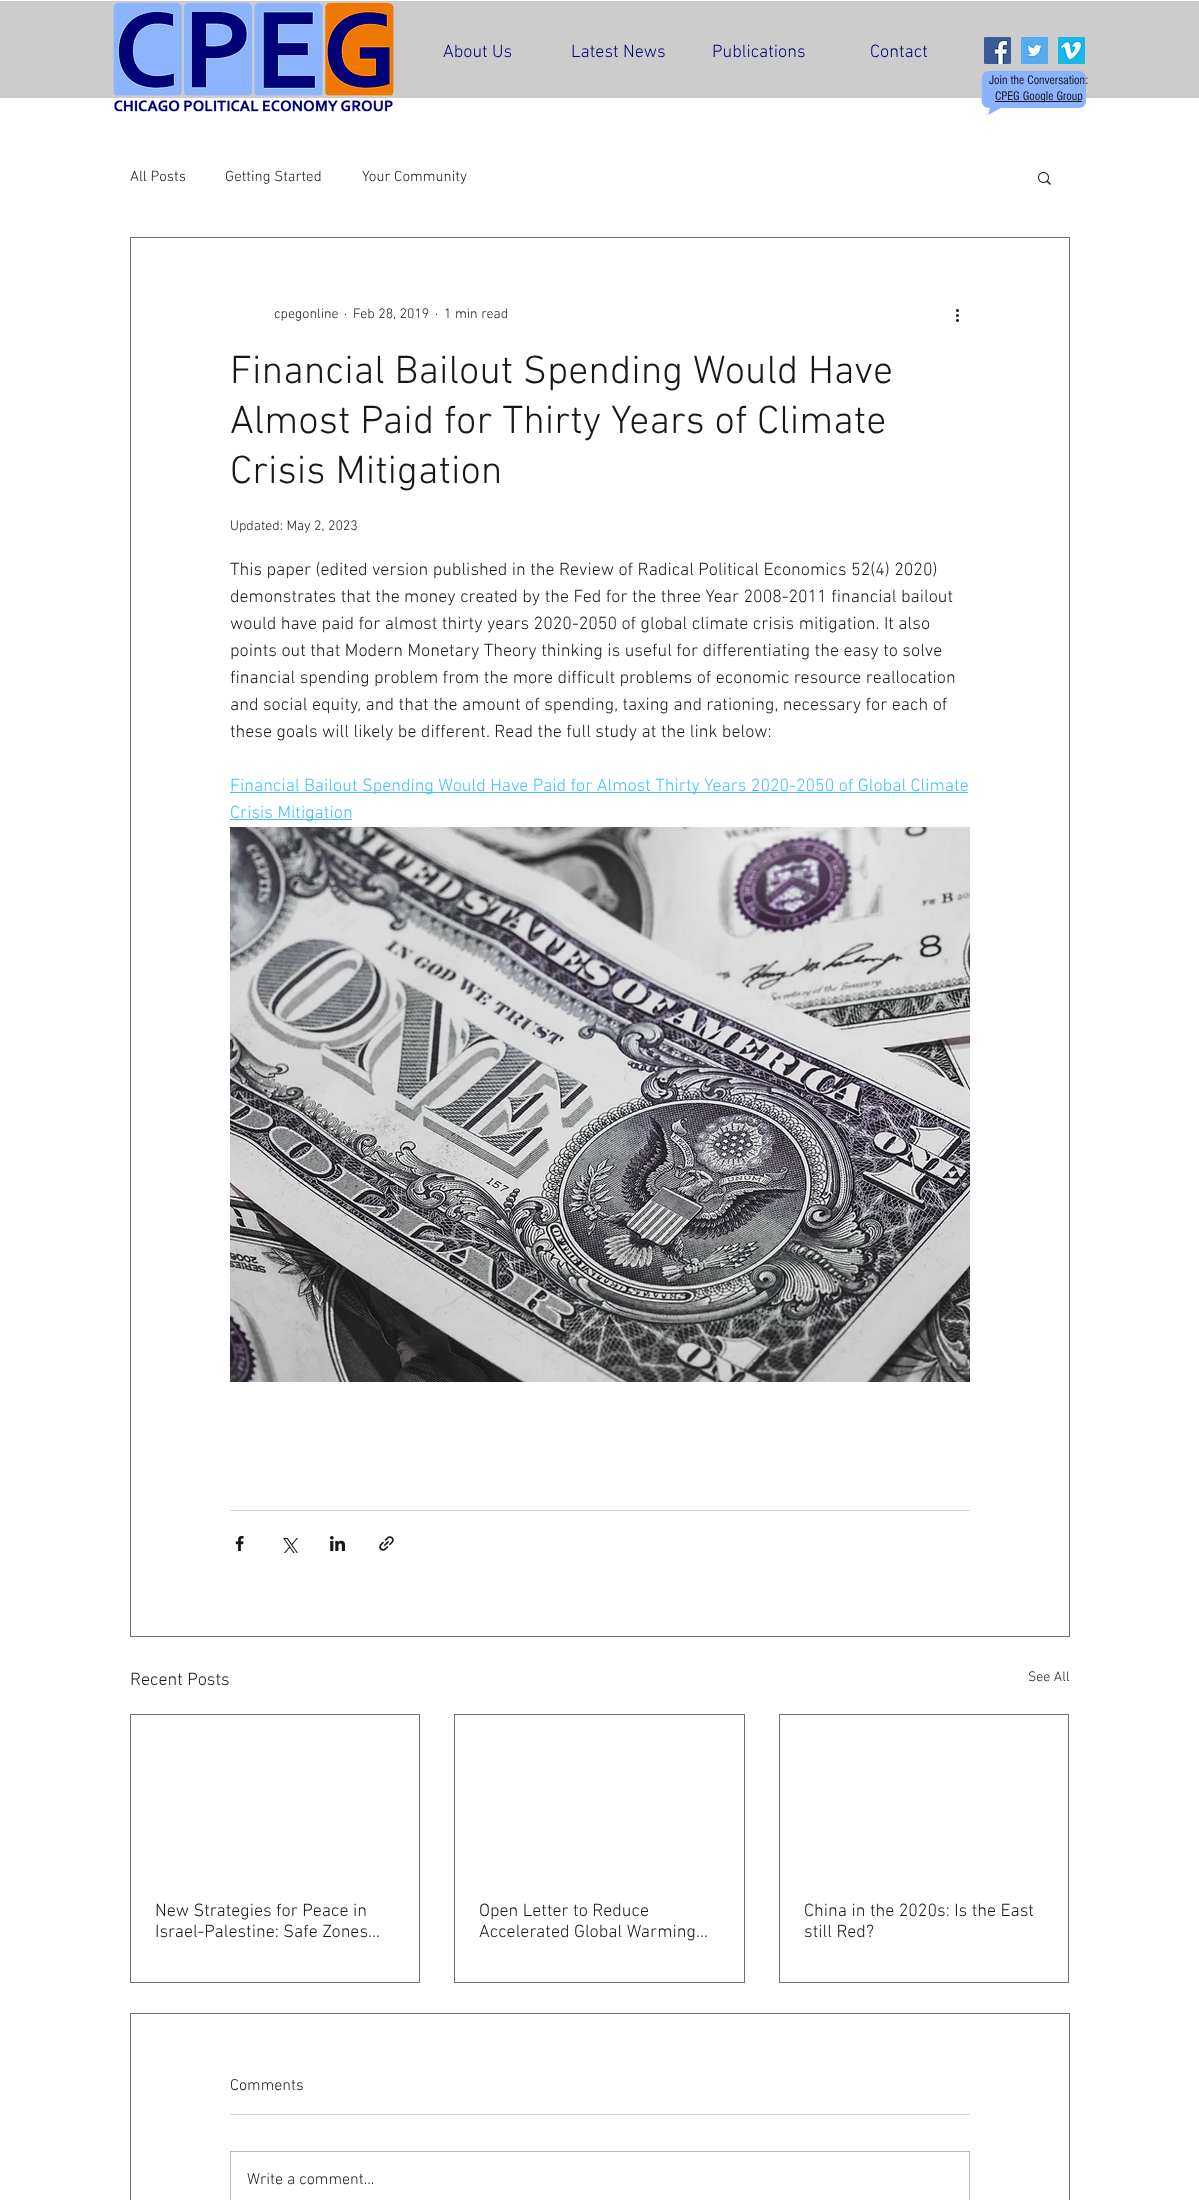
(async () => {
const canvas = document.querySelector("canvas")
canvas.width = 1199
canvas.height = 2200
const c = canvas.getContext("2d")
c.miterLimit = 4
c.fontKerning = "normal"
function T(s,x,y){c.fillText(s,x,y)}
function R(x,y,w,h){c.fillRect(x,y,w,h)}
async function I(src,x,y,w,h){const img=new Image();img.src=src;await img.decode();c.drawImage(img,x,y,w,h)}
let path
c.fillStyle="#fff"
R(0,0,1199,2200)
c.fillStyle="#ccc"
R(0,1,1199,97)
await I("1.png",113,2,281,110)
c.font="300 18px 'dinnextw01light'"
c.fillStyle="#000078"
T("About Us",443,57)
T("Latest News",571,57)
T("Publications",712,57)
T("Contact",870,57)
await I("2.png",984,37,27,27)
await I("3.png",1021,37,27,27)
await I("4.png",1058,37,27,27)
c.fillStyle="#8cb3ff"
path = new Path2D("M989 71h90c4 0 7 3 7 7v23c0 4-3 7-7 7h-78l-13 7l2-7c-11 0-8-11-8-18c0-7-2-19 7-19z")
c.fill(path)
c.font="13px 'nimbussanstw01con'"
c.fillStyle="#171717"
T("Join the Conversation:",989,84)
R(995,101,87,1)
T("CPEG Google Group",995,100)
c.font="300 15px 'dinnextw01light'"
T("All Posts",130,181)
T("Getting Started",225,181)
T("Your Community",362,181)
await I("5.png",1038,172,13,13)
c.strokeStyle="#707070"
c.strokeRect(130.5,237.5,939,1399)
c.font="300 14px 'dinnextw01light'"
T("cpegonline",274,318)
T("·",344,318)
T("Feb 28, 2019",353,318)
T("·",435,318)
T("1 min read",444,318)
await I("6.png",956,309,3,13)
c.font="300 40px 'dinnextw01light'"
T("Financial Bailout Spending Would Have",230,383)
T("Almost Paid for Thirty Years of Climate",230,433)
T("Crisis Mitigation",230,483)
c.font="300 14px 'dinnextw01light'"
T("Updated: May 2, 2023",230,530)
c.font="300 18px 'dinnextw01light'"
T("This paper (edited version published in the Review of Radical Political Economics 52(4) 2020)",230,575)
T("demonstrates that the money created by the Fed for the three Year 2008-2011 financial bailout",230,602)
T("would have paid for almost thirty years 2020-2050 of global climate crisis mitigation. It also",230,629)
T("points out that Modern Monetary Theory thinking is useful for differentiating the easy to solve",230,656)
T("financial spending problem from the more difficult problems of economic resource reallocation",230,683)
T("and social equity, and that the amount of spending, taxing and rationing, necessary for each of",230,710)
T("these goals will likely be different. Read the full study at the link below:",230,737)
c.fillStyle="#41bfff"
R(230,792,738,1)
T("Financial Bailout Spending Would Have Paid for Almost Thirty Years 2020-2050 of Global Climate",230,791)
R(230,819,122,1)
T("Crisis Mitigation",230,818)
await I("7.png",230,827,740,555)
c.fillStyle="#d1d1d1"
R(230,1510,740,1)
await I("8.png",235,1536,9,15)
await I("9.png",283,1538,15,15)
await I("10.png",330,1536,15,15)
await I("11.png",379,1536,15,15)
c.fillStyle="#171717"
T("Recent Posts",130,1685)
c.font="300 14px 'dinnextw01light'"
T("See All",1028,1681)
c.strokeRect(130.5,1714.5,289,268)
c.font="300 18px 'dinnextw01light'"
T("New Strategies for Peace in",155,1916)
T("Israel-Palestine: Safe Zones…",155,1937)
c.strokeRect(454.5,1714.5,290,268)
T("Open Letter to Reduce",479,1916)
T("Accelerated Global Warming…",479,1937)
c.strokeRect(779.5,1714.5,289,268)
T("China in the 2020s: Is the East",804,1916)
T("still Red?",804,1937)
c.strokeRect(130.5,2013.5,939,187)
c.font="300 16px 'dinnextw01light'"
T("Comments",230,2090)
c.fillStyle="#d1d1d1"
R(230,2114,740,1)
c.strokeStyle="#b9b9b9"
c.strokeRect(230.5,2151.5,739,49)
c.fillStyle="#171717"
T("Write a comment...",247,2184)
})()
